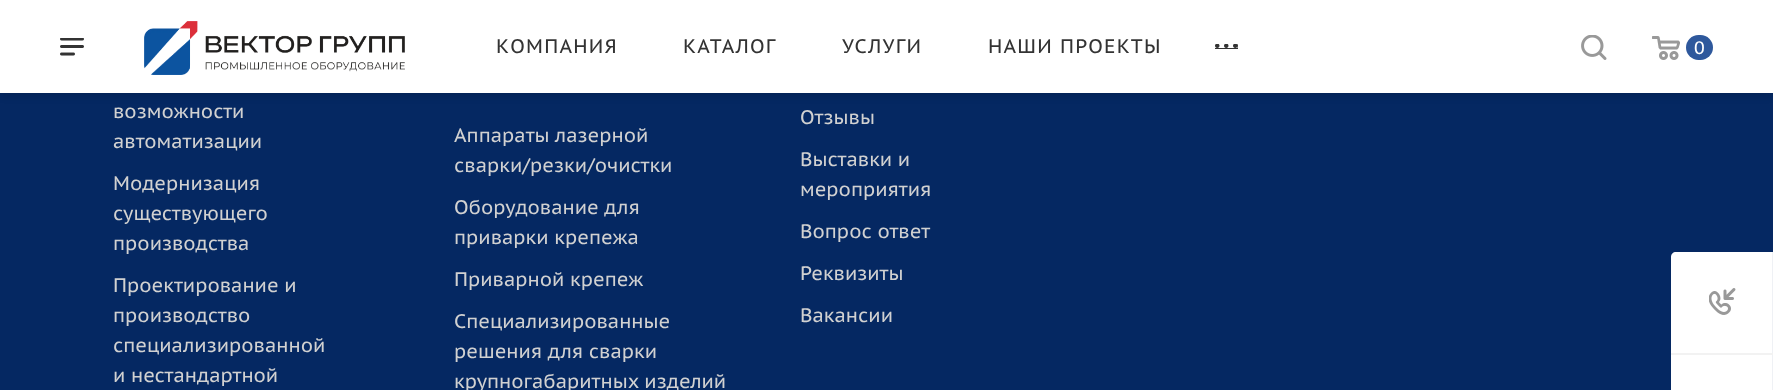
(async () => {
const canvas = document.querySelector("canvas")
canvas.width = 1773
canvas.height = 390
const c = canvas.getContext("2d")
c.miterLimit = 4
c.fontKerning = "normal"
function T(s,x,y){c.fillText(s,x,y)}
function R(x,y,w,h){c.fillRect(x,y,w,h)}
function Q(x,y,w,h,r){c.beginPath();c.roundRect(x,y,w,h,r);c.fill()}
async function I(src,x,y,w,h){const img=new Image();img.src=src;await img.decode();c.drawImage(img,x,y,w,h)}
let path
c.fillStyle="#052862"
R(0,0,1773,390)
c.fillStyle="#00000024"
c.filter="blur(4px)"
c.beginPath()
c.rect(0,2,1773,93)
c.fill()
c.filter="none"
c.fillStyle="#fff"
R(0,0,1773,93)
await I("1.png",60,38,24,18)
await I("2.png",144,21,261,54)
c.letterSpacing="1.25px"
c.font="19.5px PT Sans Caption"
c.fillStyle="#333"
T("КОМПАНИЯ",496,53)
T("КАТАЛОГ",683,53)
T("УСЛУГИ",842,53)
T("НАШИ ПРОЕКТЫ",988,53)
R(1215,44,23,5)
await I("3.png",1215,44,23,4)
await I("4.png",1581,35,26,25)
await I("5.png",1652,36,28,24)
c.fillStyle="#2e589c"
Q(1686,35,27,25,12.5)
c.letterSpacing="0px"
c.font="18px PT Sans Caption"
c.fillStyle="#fff"
T("0",1694,54)
c.font="19.5px PT Sans Caption"
c.fillStyle="#d1d1d1"
T("возможности",113,118)
T("автоматизации",113,148)
T("Модернизация",113,190)
T("существующего",113,220)
T("производства",113,250)
T("Проектирование и",113,292)
T("производство",113,322)
T("специализированной",113,352)
T("и нестандартной",113,382)
T("Аппараты лазерной",454,142)
T("сварки/резки/очистки",454,172)
T("Оборудование для",454,214)
T("приварки крепежа",454,244)
T("Приварной крепеж",454,286)
T("Специализированные",454,328)
T("решения для сварки",454,358)
T("крупногабаритных изделий",454,388)
T("Отзывы",800,124)
T("Выставки и",800,166)
T("мероприятия",800,196)
T("Вопрос ответ",800,238)
T("Реквизиты",800,280)
T("Вакансии",800,322)
c.fillStyle="#fff"
path = new Path2D("M1676 252h97v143h-97c-3 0-5-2-5-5v-133c0-3 2-5 5-5z")
c.fill(path)
c.fillStyle="#eff1f5"
R(1772,252,1,138)
c.fillStyle="#f2f2f2"
R(1671,353,102,2)
await I("6.png",1709,288,27,27)
})()
